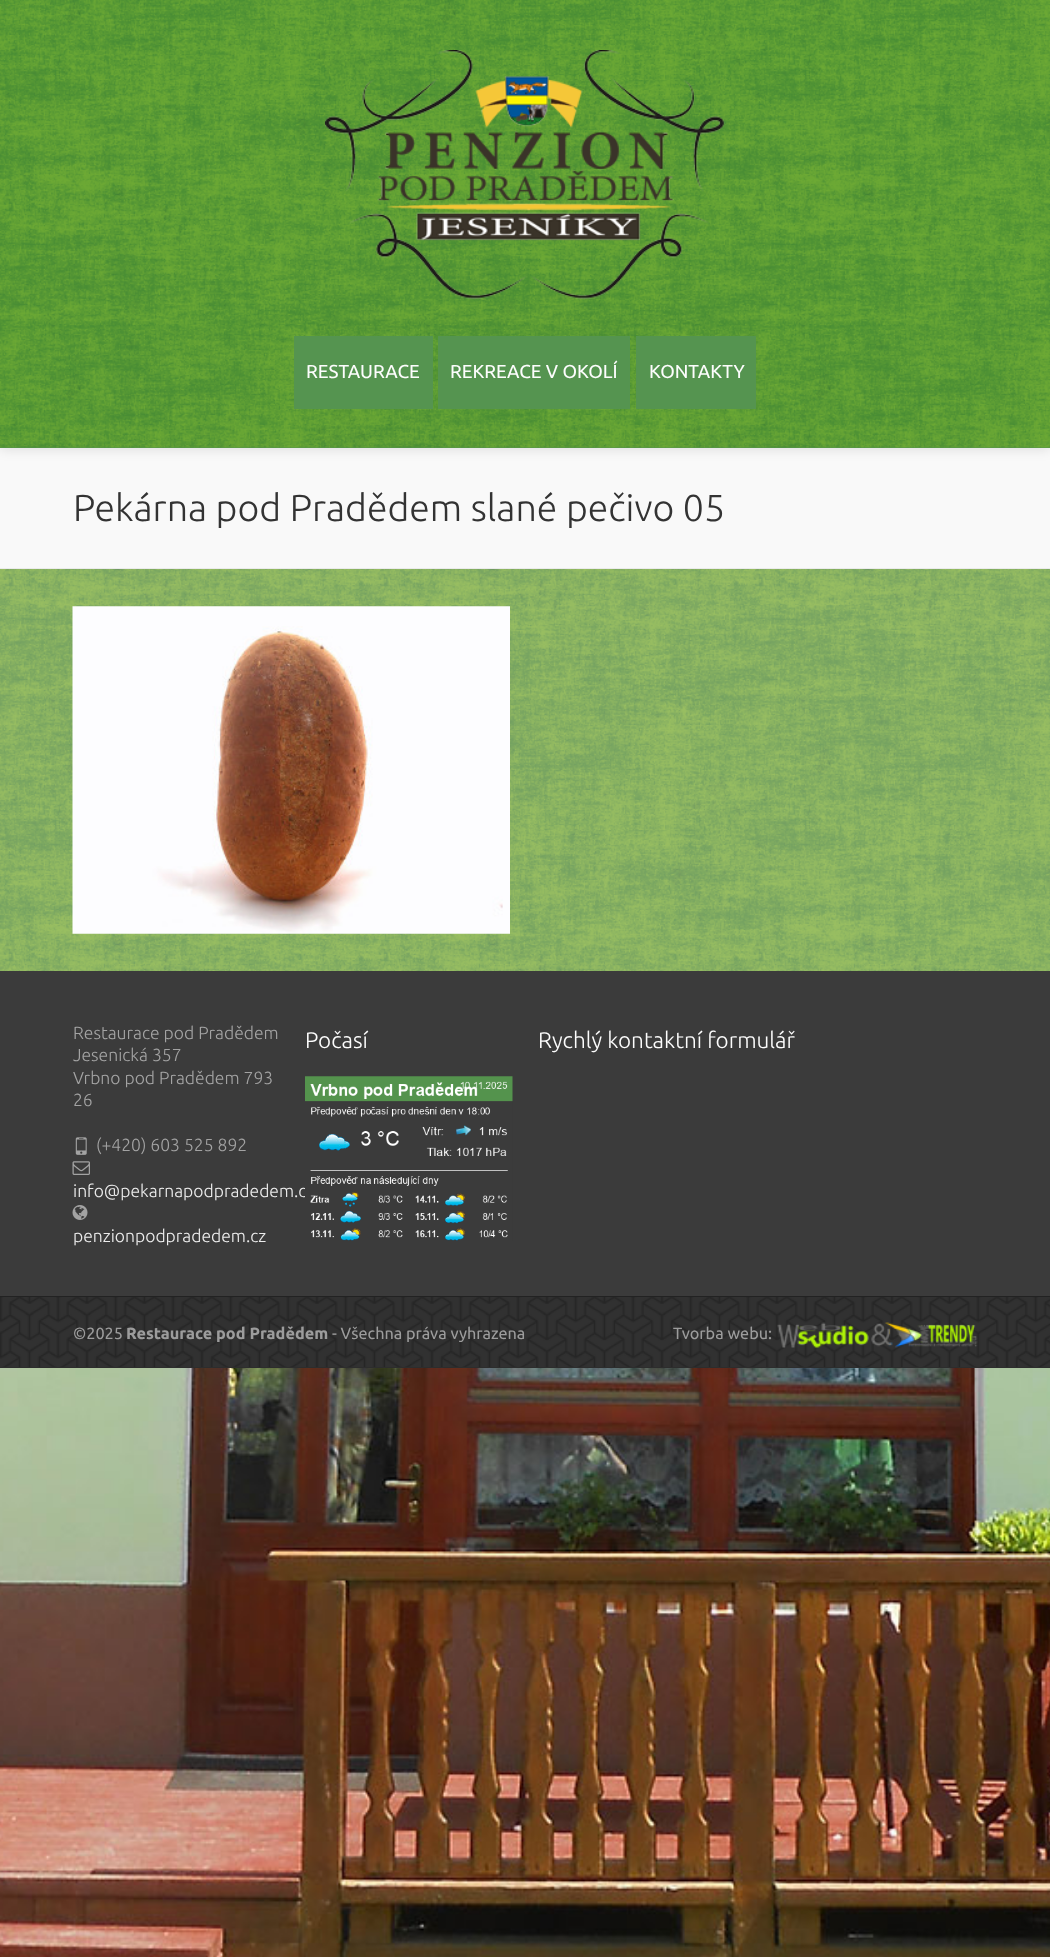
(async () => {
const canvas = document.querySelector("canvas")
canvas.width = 1050
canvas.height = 1957
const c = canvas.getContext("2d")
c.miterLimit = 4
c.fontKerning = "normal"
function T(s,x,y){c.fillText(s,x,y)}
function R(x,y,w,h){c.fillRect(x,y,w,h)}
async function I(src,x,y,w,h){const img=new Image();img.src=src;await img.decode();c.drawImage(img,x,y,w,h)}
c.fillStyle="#fff"
R(0,0,1050,1957)
await I("1.png",0,1368,1050,589)
c.fillStyle="#9ab596"
R(0,569,1050,402)
await I("2.png",0,569,1050,402)
c.fillStyle="#f9f9f9"
R(0,448,1050,120)
c.fillStyle="#0000001a"
c.filter="blur(6px)"
c.beginPath()
c.rect(0,3,1050,447)
c.fill()
c.filter="none"
c.fillStyle="#559450"
R(0,0,1050,448)
await I("3.png",0,0,1050,448)
await I("4.png",325,50,400,249)
R(294,336,139,73)
c.font="18.75px Ubuntu"
c.fillStyle="#fdfdfd"
T("RESTAURACE",306,378)
c.fillStyle="#559450"
R(438,336,192,73)
c.fillStyle="#fdfdfd"
T("REKREACE V OKOLÍ",450,378)
c.fillStyle="#559450"
R(636,336,120,73)
c.fillStyle="#fdfdfd"
T("KONTAKTY",649,378)
c.fillStyle="#ebebeb"
R(0,568,1050,1)
c.font="300 37.5px Ubuntu"
c.fillStyle="#333"
T("Pekárna pod Pradědem slané pečivo 05",73,521)
await I("5.png",72,606,438,328)
c.fillStyle="#3b3b3b"
R(0,971,1050,325)
c.font="300 17.5px Ubuntu"
c.fillStyle="#a3a3a3"
T("Restaurace pod Pradědem",73,1039)
T("Jesenická 357",73,1061)
T("Vrbno pod Pradědem 793",73,1084)
T("26",73,1106)
await I("6.png",75,1137,12,18)
T("(+420) 603 525 892",96,1151)
await I("7.png",72,1161,18,14)
c.fillStyle="#ececec"
T("info@pekarnapodpradedem.c",73,1197)
await I("8.png",72,1205,16,15)
T("penzionpodpradedem.cz",73,1242)
c.font="300 22.5px Ubuntu"
c.fillStyle="#fdfdfd"
T("Počasí",305,1048)
await I("9.png",305,1076,208,165)
T("Rychlý kontaktní formulář",538,1048)
c.fillStyle="#2d2d2d"
R(0,1367,1050,1)
await I("10.png",0,1297,1050,70)
c.fillStyle="#222"
R(0,1296,1050,1)
c.font="16.25px Ubuntu"
c.fillStyle="#9c9c9c"
T("©2025",73,1339)
c.font="bold 16.25px Ubuntu"
T("Restaurace pod Pradědem",126,1339)
c.font="16.25px Ubuntu"
T("- Všechna práva vyhrazena",332,1339)
T("Tvorba webu:",673,1339)
await I("11.png",777,1322,201,26)
})()
